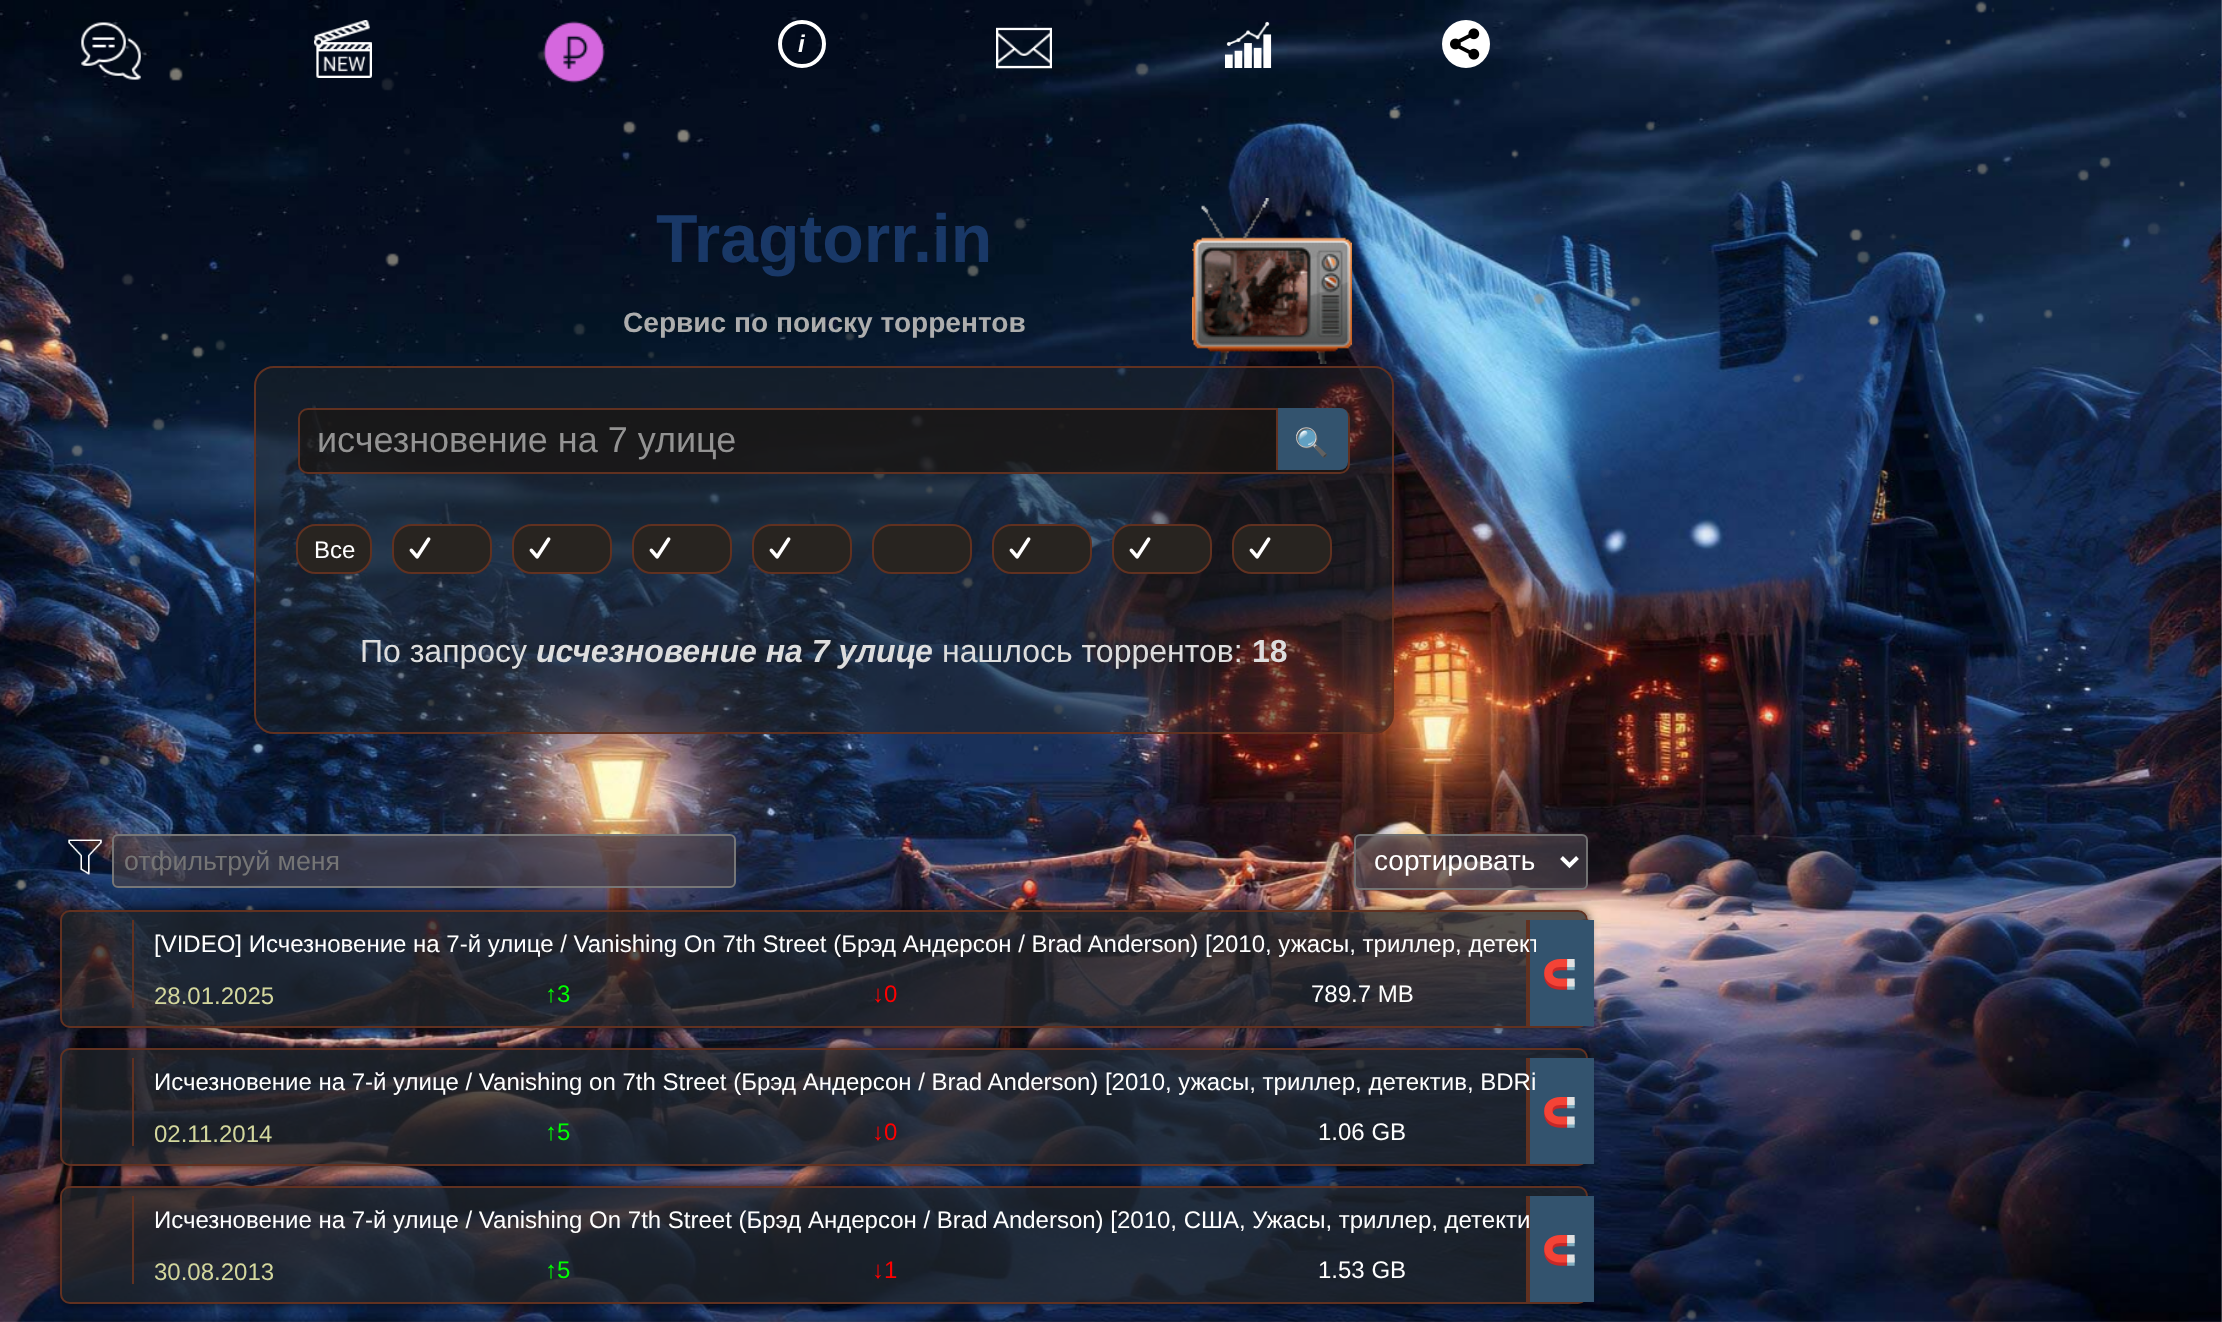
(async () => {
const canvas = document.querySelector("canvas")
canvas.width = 2222
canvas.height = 1322
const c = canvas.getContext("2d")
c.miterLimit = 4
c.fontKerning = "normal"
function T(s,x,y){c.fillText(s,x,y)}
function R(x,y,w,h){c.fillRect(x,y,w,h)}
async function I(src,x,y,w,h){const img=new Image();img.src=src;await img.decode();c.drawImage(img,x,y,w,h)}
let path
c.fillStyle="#fff"
R(0,0,2222,1322)
await I("1.png",0,0,2222,1322)
await I("2.png",15,0,2207,1322)
await I("3.png",81,22,60,58)
await I("4.png",314,20,58,58)
await I("5.png",543,21,62,62)
c.beginPath()
c.arc(802,44,22,0,7)
c.strokeStyle="#fff"
c.lineWidth=4
c.stroke()
c.font="italic bold 24px Liberation Sans"
T("i",798,52)
await I("6.png",996,27,56,42)
await I("7.png",1225,21,47,47)
c.beginPath()
c.arc(1466,44,24,0,7)
c.fill()
await I("8.png",1450,28,30,32)
c.font="bold 68px Liberation Sans"
c.fillStyle="#193867"
T("Tragtorr.in",656,262)
c.font="bold 28.1px Liberation Sans"
c.fillStyle="#adadad"
T("Сервис по поиску торрентов",623,332)
c.fillStyle="#20242882"
c.beginPath()
c.roundRect(255,367,1138,366,19)
c.fill()
c.strokeStyle="#613120"
c.lineWidth=2
c.stroke()
await I("9.png",1192,198,160,166)
c.fillStyle="#1a1613c4"
c.beginPath()
c.roundRect(299,409,1050,64,9)
c.fill()
c.stroke()
c.font="36px Liberation Sans"
c.fillStyle="#939393"
T("исчезновение на 7 улице",317,452)
c.fillStyle="#33536e"
c.beginPath()
c.roundRect(1276,408,72,62,[0,8,8,0])
c.fill()
c.fillStyle="#613120"
R(1276,408,2,62)
c.font="28px Noto Color Emoji"
c.fillStyle="#fff"
T("🔍",1294,452)
c.fillStyle="#282420"
c.beginPath()
c.roundRect(297,525,74,48,19)
c.fill()
c.stroke()
c.font="24px Liberation Sans"
c.fillStyle="#fff"
T("Все",314,558)
c.fillStyle="#282420"
c.beginPath()
c.roundRect(393,525,98,48,19)
c.fill()
c.stroke()
await I("10.png",409,537,22,22)
c.beginPath()
c.roundRect(513,525,98,48,19)
c.fill()
c.stroke()
await I("10.png",529,537,22,22)
c.beginPath()
c.roundRect(633,525,98,48,19)
c.fill()
c.stroke()
await I("10.png",649,537,22,22)
c.beginPath()
c.roundRect(753,525,98,48,19)
c.fill()
c.stroke()
await I("10.png",769,537,22,22)
c.beginPath()
c.roundRect(873,525,98,48,19)
c.fill()
c.stroke()
c.beginPath()
c.roundRect(993,525,98,48,19)
c.fill()
c.stroke()
await I("10.png",1009,537,22,22)
c.beginPath()
c.roundRect(1113,525,98,48,19)
c.fill()
c.stroke()
await I("10.png",1129,537,22,22)
c.beginPath()
c.roundRect(1233,525,98,48,19)
c.fill()
c.stroke()
await I("10.png",1249,537,22,22)
c.font="32px Liberation Sans"
c.fillStyle="#ddd"
T("По запросу",360,662)
c.font="italic bold 32px Liberation Sans"
T("исчезновение на 7 улице",536,662)
c.font="32px Liberation Sans"
T("нашлось торрентов:",942,662)
c.font="bold 32px Liberation Sans"
T("18",1252,662)
await I("11.png",68,839,34,36)
c.fillStyle="#464048b0"
c.beginPath()
c.roundRect(113,835,622,52,5)
c.fill()
c.strokeStyle="#777"
c.stroke()
c.font="26.75px Liberation Sans"
c.fillStyle="#757575"
T("отфильтруй меня",124,870)
c.fillStyle="#464048b0"
c.beginPath()
c.roundRect(1355,835,232,54,5)
c.fill()
c.strokeStyle="#727272"
c.stroke()
path = new Path2D("M1561.5 857.5l8 8l8-8")
c.strokeStyle="#fff"
c.lineWidth=4
c.stroke(path)
c.font="28px Liberation Sans"
c.fillStyle="#fff"
T("сортировать",1374,870)
c.save()
path = new Path2D("M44 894h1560v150h-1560zm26 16h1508c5.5 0 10 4.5 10 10v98c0 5.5-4.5 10-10 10h-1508c-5.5 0-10-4.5-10-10v-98c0-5.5 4.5-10 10-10z")
c.clip(path,"evenodd")
c.fillStyle="#000000bf"
c.filter="blur(5px)"
c.beginPath()
c.roundRect(60,910,1528,118,10)
c.fill()
c.filter="none"
c.restore()
c.fillStyle="#202428c2"
c.beginPath()
c.roundRect(61,911,1526,116,9)
c.fill()
c.strokeStyle="#613120"
c.lineWidth=2
c.stroke()
c.fillStyle="#613120"
R(132,920,2,88)
c.fillStyle="#33536e"
R(1530,920,64,106)
c.fillStyle="#613120"
R(1526,920,4,106)
c.save()
c.beginPath()
c.rect(154,920,1382,48)
c.clip()
c.font="24px Liberation Sans"
c.fillStyle="#fff"
T("[VIDEO] Исчезновение на 7-й улице / Vanishing On 7th Street (Брэд Андерсон / Brad Anderson) [2010, ужасы, триллер, детект",154,952)
c.restore()
c.font="28px Noto Color Emoji"
c.fillStyle="#fff"
T("🧲",1542,984)
c.font="24px Liberation Sans"
c.fillStyle="#d3d79d"
T("28.01.2025",154,1004)
c.fillStyle="#0f0"
T("↑3",545,1002)
c.fillStyle="#f00"
T("↓0",872,1002)
c.fillStyle="#fff"
T("789.7 MB",1311,1002)
c.save()
path = new Path2D("M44 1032h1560v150h-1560zm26 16h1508c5.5 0 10 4.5 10 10v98c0 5.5-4.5 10-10 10h-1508c-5.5 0-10-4.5-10-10v-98c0-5.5 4.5-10 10-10z")
c.clip(path,"evenodd")
c.fillStyle="#000000bf"
c.filter="blur(5px)"
c.beginPath()
c.roundRect(60,1048,1528,118,10)
c.fill()
c.filter="none"
c.restore()
c.fillStyle="#202428c2"
c.beginPath()
c.roundRect(61,1049,1526,116,9)
c.fill()
c.stroke()
c.fillStyle="#613120"
R(132,1058,2,88)
c.fillStyle="#33536e"
R(1530,1058,64,106)
c.fillStyle="#613120"
R(1526,1058,4,106)
c.fillStyle="#fff"
T("Исчезновение на 7-й улице / Vanishing on 7th Street (Брэд Андерсон / Brad Anderson) [2010, ужасы, триллер, детектив, BDRi",154,1090)
c.font="28px Noto Color Emoji"
T("🧲",1542,1122)
c.font="24px Liberation Sans"
c.fillStyle="#d3d79d"
T("02.11.2014",154,1142)
c.fillStyle="#0f0"
T("↑5",545,1140)
c.fillStyle="#f00"
T("↓0",872,1140)
c.fillStyle="#fff"
T("1.06 GB",1318,1140)
c.save()
path = new Path2D("M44 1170h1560v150h-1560zm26 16h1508c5.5 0 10 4.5 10 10v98c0 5.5-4.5 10-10 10h-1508c-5.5 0-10-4.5-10-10v-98c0-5.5 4.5-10 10-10z")
c.clip(path,"evenodd")
c.fillStyle="#000000bf"
c.filter="blur(5px)"
c.beginPath()
c.roundRect(60,1186,1528,118,10)
c.fill()
c.filter="none"
c.restore()
c.fillStyle="#202428c2"
c.beginPath()
c.roundRect(61,1187,1526,116,9)
c.fill()
c.stroke()
c.fillStyle="#613120"
R(132,1196,2,88)
R(1526,1196,4,106)
c.fillStyle="#fff"
T("Исчезновение на 7-й улице / Vanishing On 7th Street (Брэд Андерсон / Brad Anderson) [2010, США, Ужасы, триллер, детекти",154,1228)
c.fillStyle="#33536e"
R(1530,1196,64,106)
c.font="28px Noto Color Emoji"
c.fillStyle="#fff"
T("🧲",1542,1260)
c.font="24px Liberation Sans"
c.fillStyle="#d3d79d"
T("30.08.2013",154,1280)
c.fillStyle="#0f0"
T("↑5",545,1278)
c.fillStyle="#f00"
T("↓1",872,1278)
c.fillStyle="#fff"
T("1.53 GB",1318,1278)
c.fillStyle="#000000bf"
c.filter="blur(5px)"
c.beginPath()
c.roundRect(60,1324,1528,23,10)
c.fill()
c.filter="none"
})()
